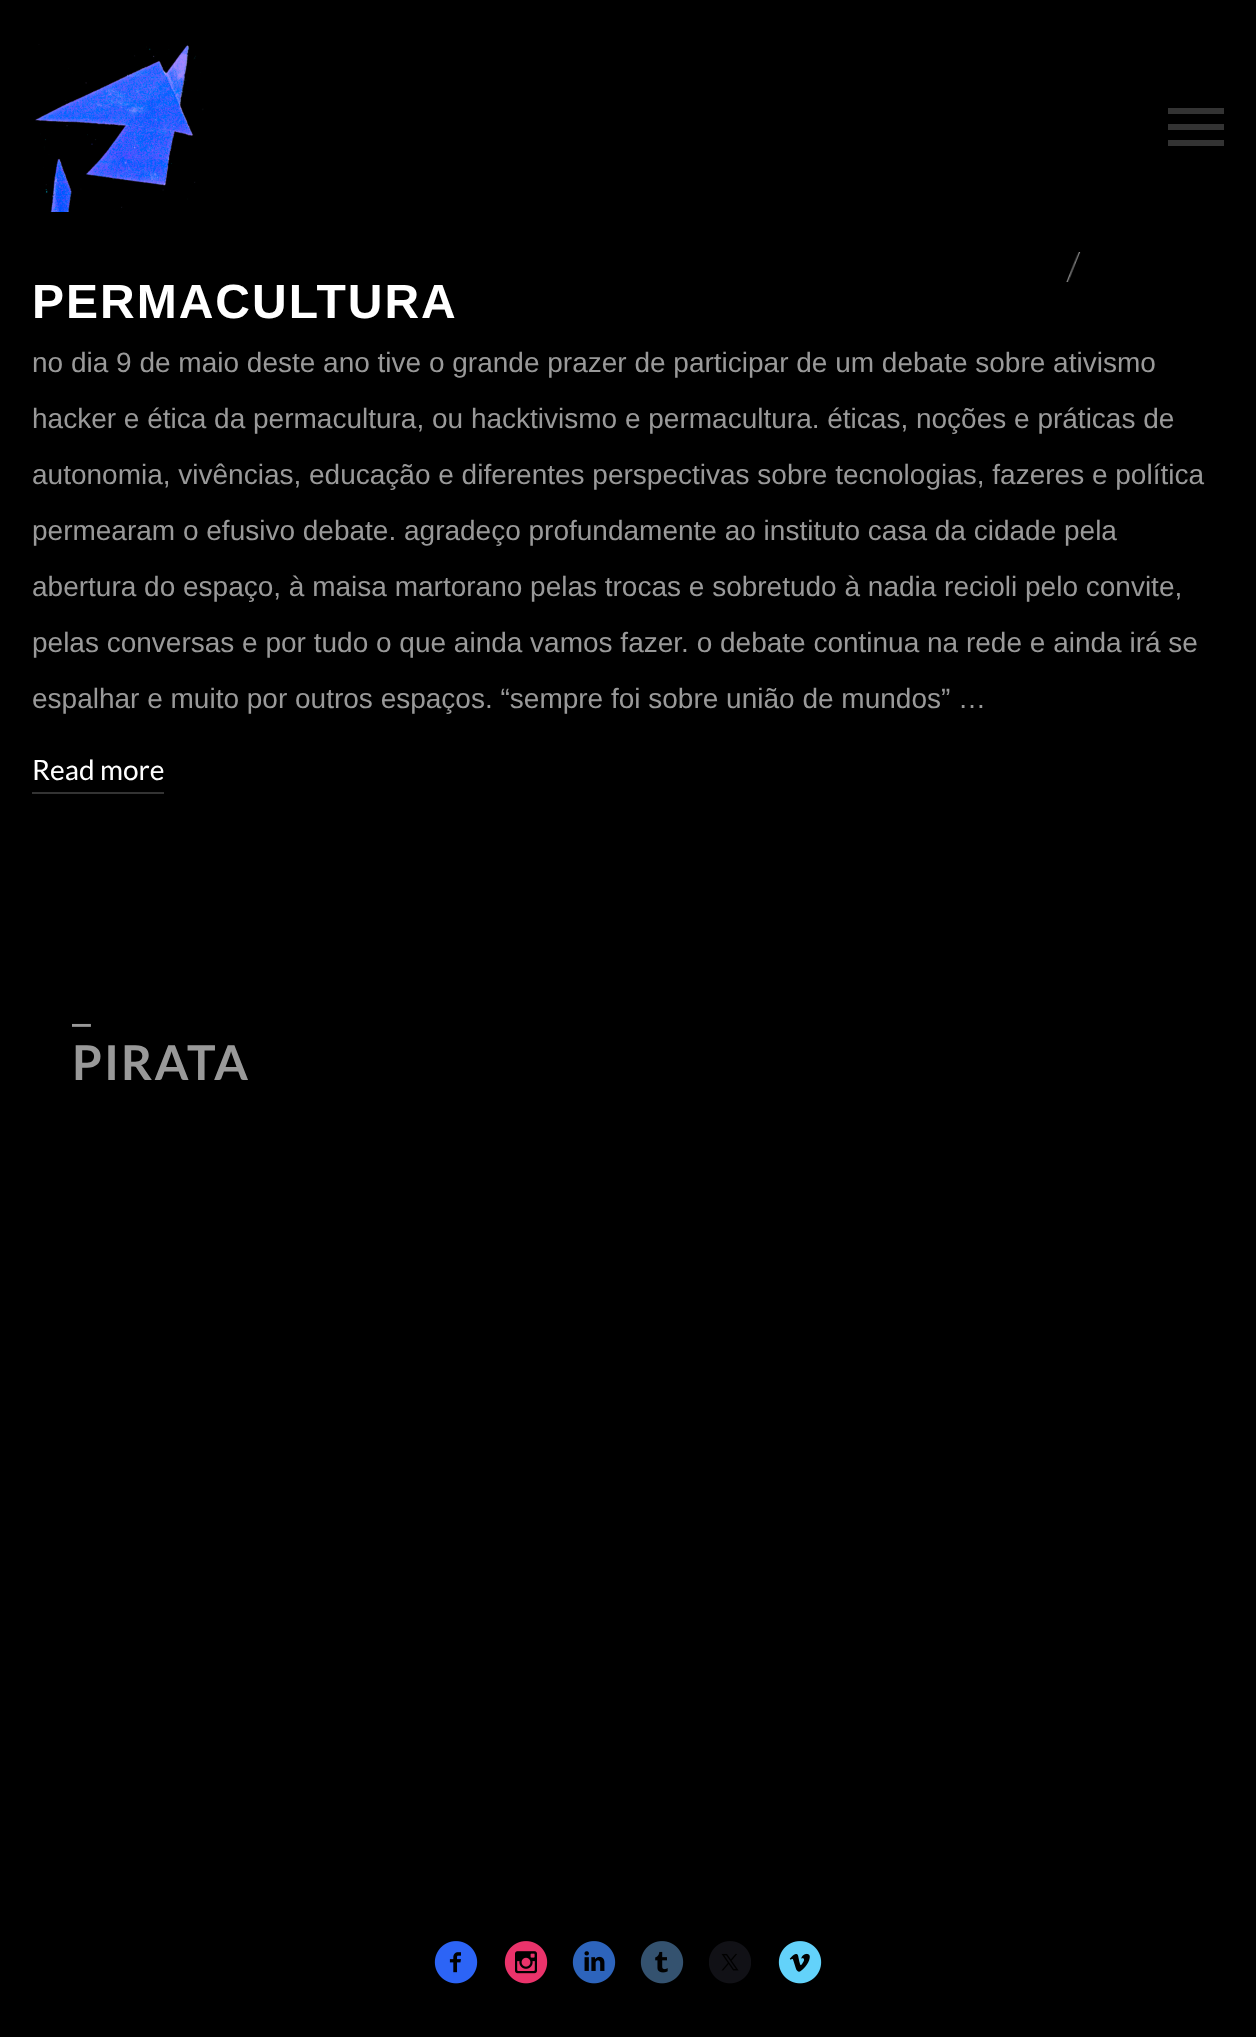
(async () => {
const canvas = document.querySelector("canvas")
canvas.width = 1256
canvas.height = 2037
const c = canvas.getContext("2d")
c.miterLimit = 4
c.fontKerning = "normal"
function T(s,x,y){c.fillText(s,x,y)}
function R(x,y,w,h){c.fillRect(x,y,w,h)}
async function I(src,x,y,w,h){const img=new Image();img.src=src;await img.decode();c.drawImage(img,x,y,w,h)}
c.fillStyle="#000"
R(0,0,1256,2037)
await I("2.png",1066,252,15,30)
c.fillStyle="#0000001a"
c.filter="blur(10px)"
c.beginPath()
c.rect(0,10,1256,252)
c.fill()
c.filter="none"
await I("1.png",35,44,169,168)
c.fillStyle="#333"
R(1168,124,56,6)
R(1168,108,56,6)
R(1168,140,56,6)
c.letterSpacing="2px"
c.font="bold 48px Liberation Sans"
c.fillStyle="#fff"
T("PERMACULTURA",32,318)
c.letterSpacing="0px"
c.font="28px Liberation Sans"
c.fillStyle="#999"
T("no dia 9 de maio deste ano tive o grande prazer de participar de um debate sobre ativismo",32,372)
T("hacker e ética da permacultura, ou hacktivismo e permacultura. éticas, noções e práticas de",32,428)
T("autonomia, vivências, educação e diferentes perspectivas sobre tecnologias, fazeres e política",32,484)
T("permearam o efusivo debate. agradeço profundamente ao instituto casa da cidade pela",32,540)
T("abertura do espaço, à maisa martorano pelas trocas e sobretudo à nadia recioli pelo convite,",32,596)
T("pelas conversas e por tudo o que ainda vamos fazer. o debate continua na rede e ainda irá se",32,652)
T("espalhar e muito por outros espaços. “sempre foi sobre união de mundos” …",32,708)
c.font="28px Lato"
c.fillStyle="#fff"
T("Read more",32,780)
c.fillStyle="#333"
R(32,792,132,2)
c.font="48px Lato"
c.fillStyle="#999"
T("_",72,1020)
c.letterSpacing="2px"
c.font="bold 48px Lato"
T("PIRATA",72,1080)
await I("3.png",434,1941,44,43)
await I("4.png",504,1941,44,43)
await I("5.png",572,1941,44,43)
await I("6.png",640,1941,44,43)
await I("7.png",709,1941,42,43)
await I("8.png",778,1941,44,43)
})()
